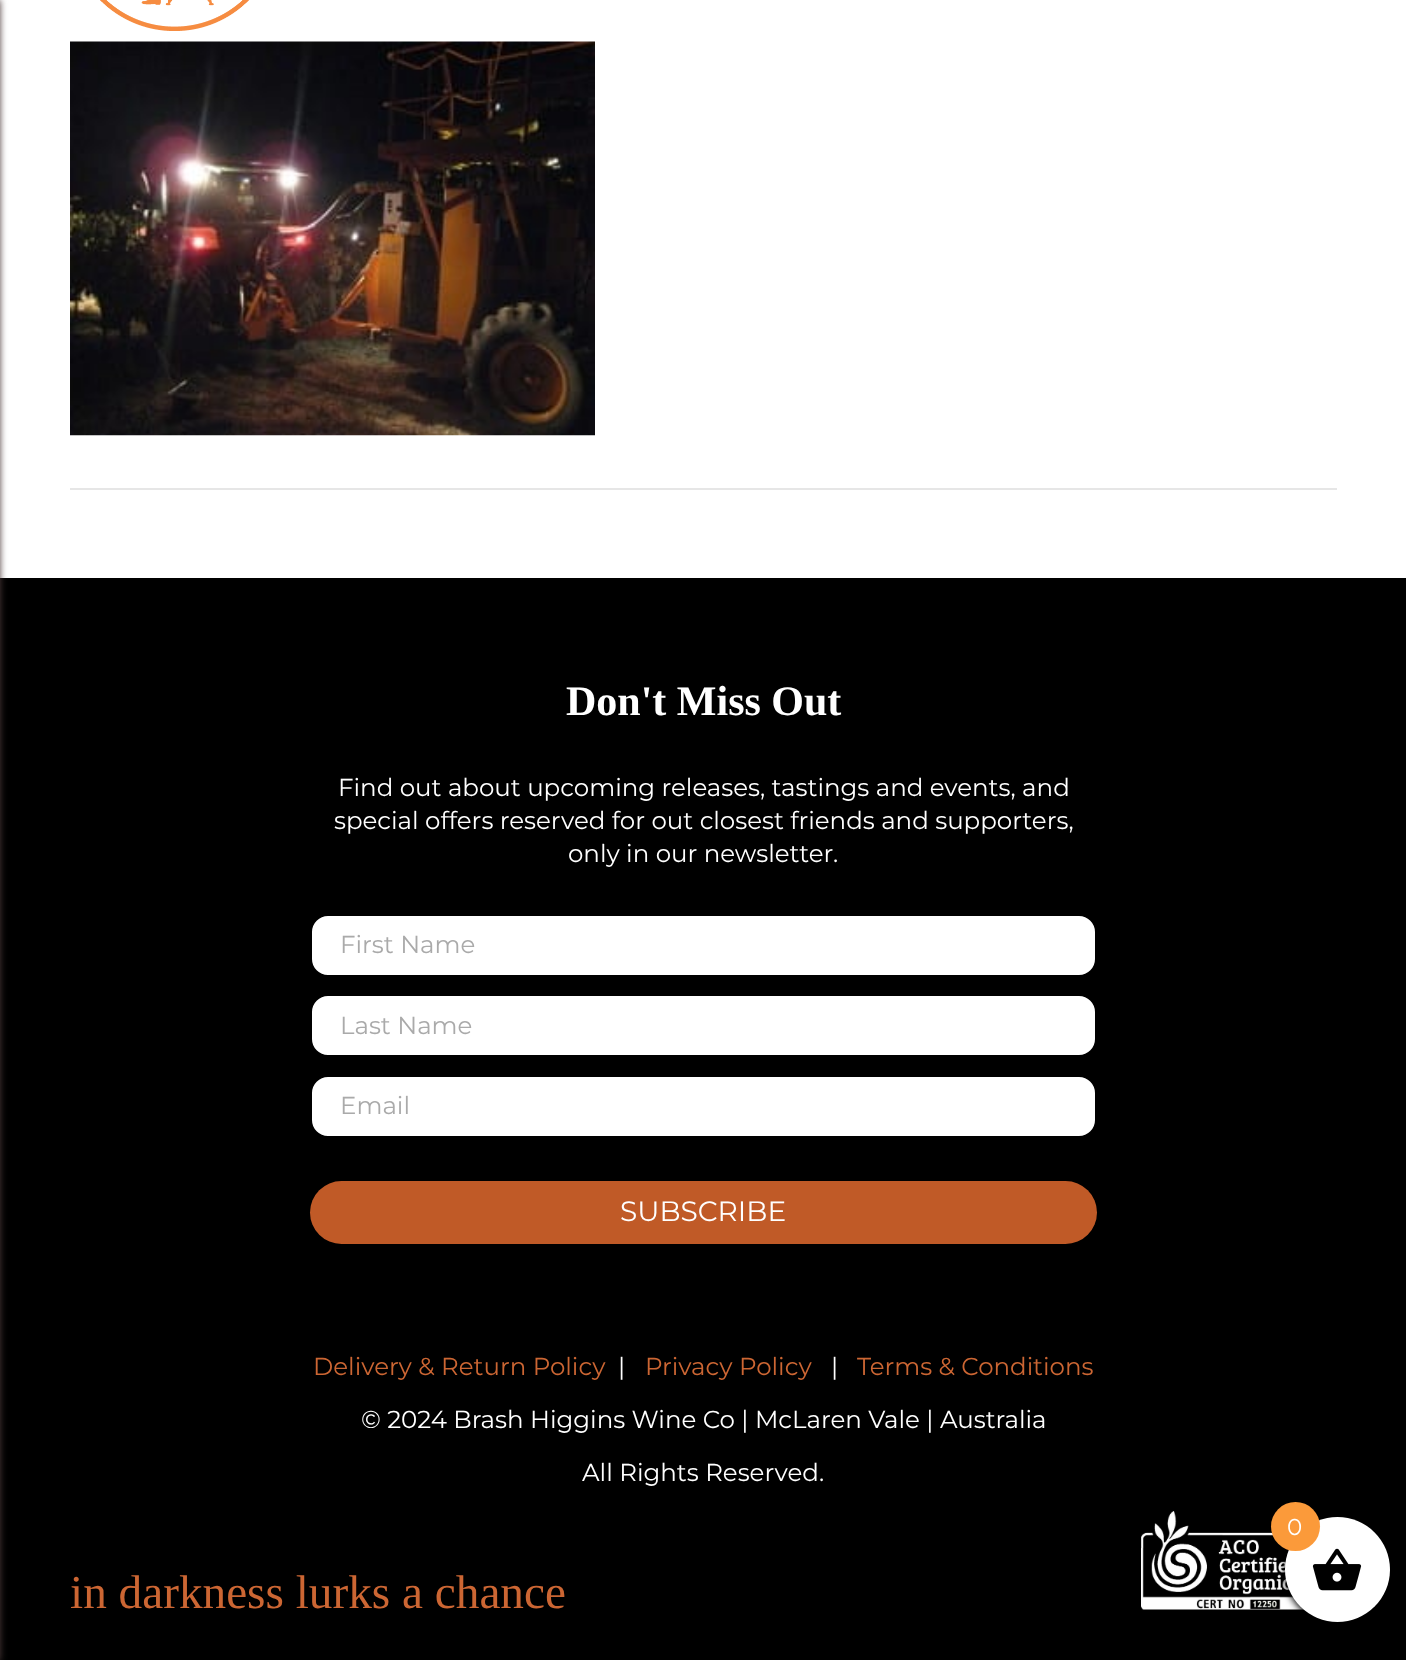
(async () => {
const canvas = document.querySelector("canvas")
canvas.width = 1406
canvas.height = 1660
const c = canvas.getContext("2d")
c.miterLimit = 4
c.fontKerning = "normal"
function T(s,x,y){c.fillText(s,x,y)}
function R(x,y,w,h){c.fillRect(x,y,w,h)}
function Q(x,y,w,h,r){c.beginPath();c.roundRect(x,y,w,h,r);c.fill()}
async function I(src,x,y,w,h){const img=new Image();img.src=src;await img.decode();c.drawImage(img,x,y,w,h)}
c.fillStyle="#fff"
R(0,0,1406,1660)
c.fillStyle="#000"
R(0,578,1406,1082)
c.fillStyle="#4e3c3c"
c.filter="blur(3.5px)"
c.beginPath()
c.rect(-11,0,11,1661)
c.fill()
c.filter="none"
await I("1.png",100,0,149,31)
await I("2.png",70,41,525,395)
c.fillStyle="#e6e6e6"
R(70,488,1267,2)
c.font="bold 42px Liberation Serif"
c.fillStyle="#fff"
T("Don't Miss Out",566,715)
c.font="24.5px Montserrat"
T("Find out about upcoming releases, tastings and events, and",338,796)
T("special offers reserved for out closest friends and supporters,",334,829)
T("only in our newsletter.",568,862)
c.beginPath()
c.roundRect(311,915,785,61,17)
c.fill()
c.strokeStyle="#000"
c.lineWidth=2
c.stroke()
c.fillStyle="#aaa"
T("First Name",340,953)
c.fillStyle="#fff"
c.beginPath()
c.roundRect(311,995,785,61,17)
c.fill()
c.stroke()
c.fillStyle="#aaa"
T("Last Name",340,1034)
c.fillStyle="#fff"
c.beginPath()
c.roundRect(311,1076,785,61,17)
c.fill()
c.stroke()
c.fillStyle="#aaa"
T("Email",340,1114)
c.fillStyle="#c05a27"
Q(310,1181,787,63,31.5)
c.font="28px Montserrat"
c.fillStyle="#fff"
T("SUBSCRIBE",620,1221)
c.font="24.5px Montserrat"
c.fillStyle="#c63"
T("Delivery & Return Policy",313,1375)
c.fillStyle="#fff"
T("|",618,1375)
c.fillStyle="#c63"
T("Privacy Policy",645,1375)
c.fillStyle="#fff"
T("|",831,1375)
c.fillStyle="#c63"
T("Terms & Conditions",857,1375)
c.fillStyle="#fff"
T("© 2024 Brash Higgins Wine Co | McLaren Vale | Australia",361,1428)
T("All Rights Reserved.",582,1481)
c.font="47.25px Liberation Serif"
c.fillStyle="#c63"
T("in darkness lurks a chance",70,1608)
await I("3.png",1141,1511,196,99)
c.fillStyle="#000"
c.filter="blur(3.5px)"
c.beginPath()
c.roundRect(1285,1519,105,105,52.5)
c.fill()
c.filter="none"
c.fillStyle="#fff"
c.beginPath()
c.arc(1337.5,1569.5,52.5,0,7)
c.fill()
await I("4.png",1312,1548,50,43)
c.fillStyle="#fb9a3a"
c.beginPath()
c.arc(1295.5,1526.5,24.5,0,7)
c.fill()
c.font="23px Montserrat"
c.fillStyle="#fff"
T("0",1287,1535)
})()
